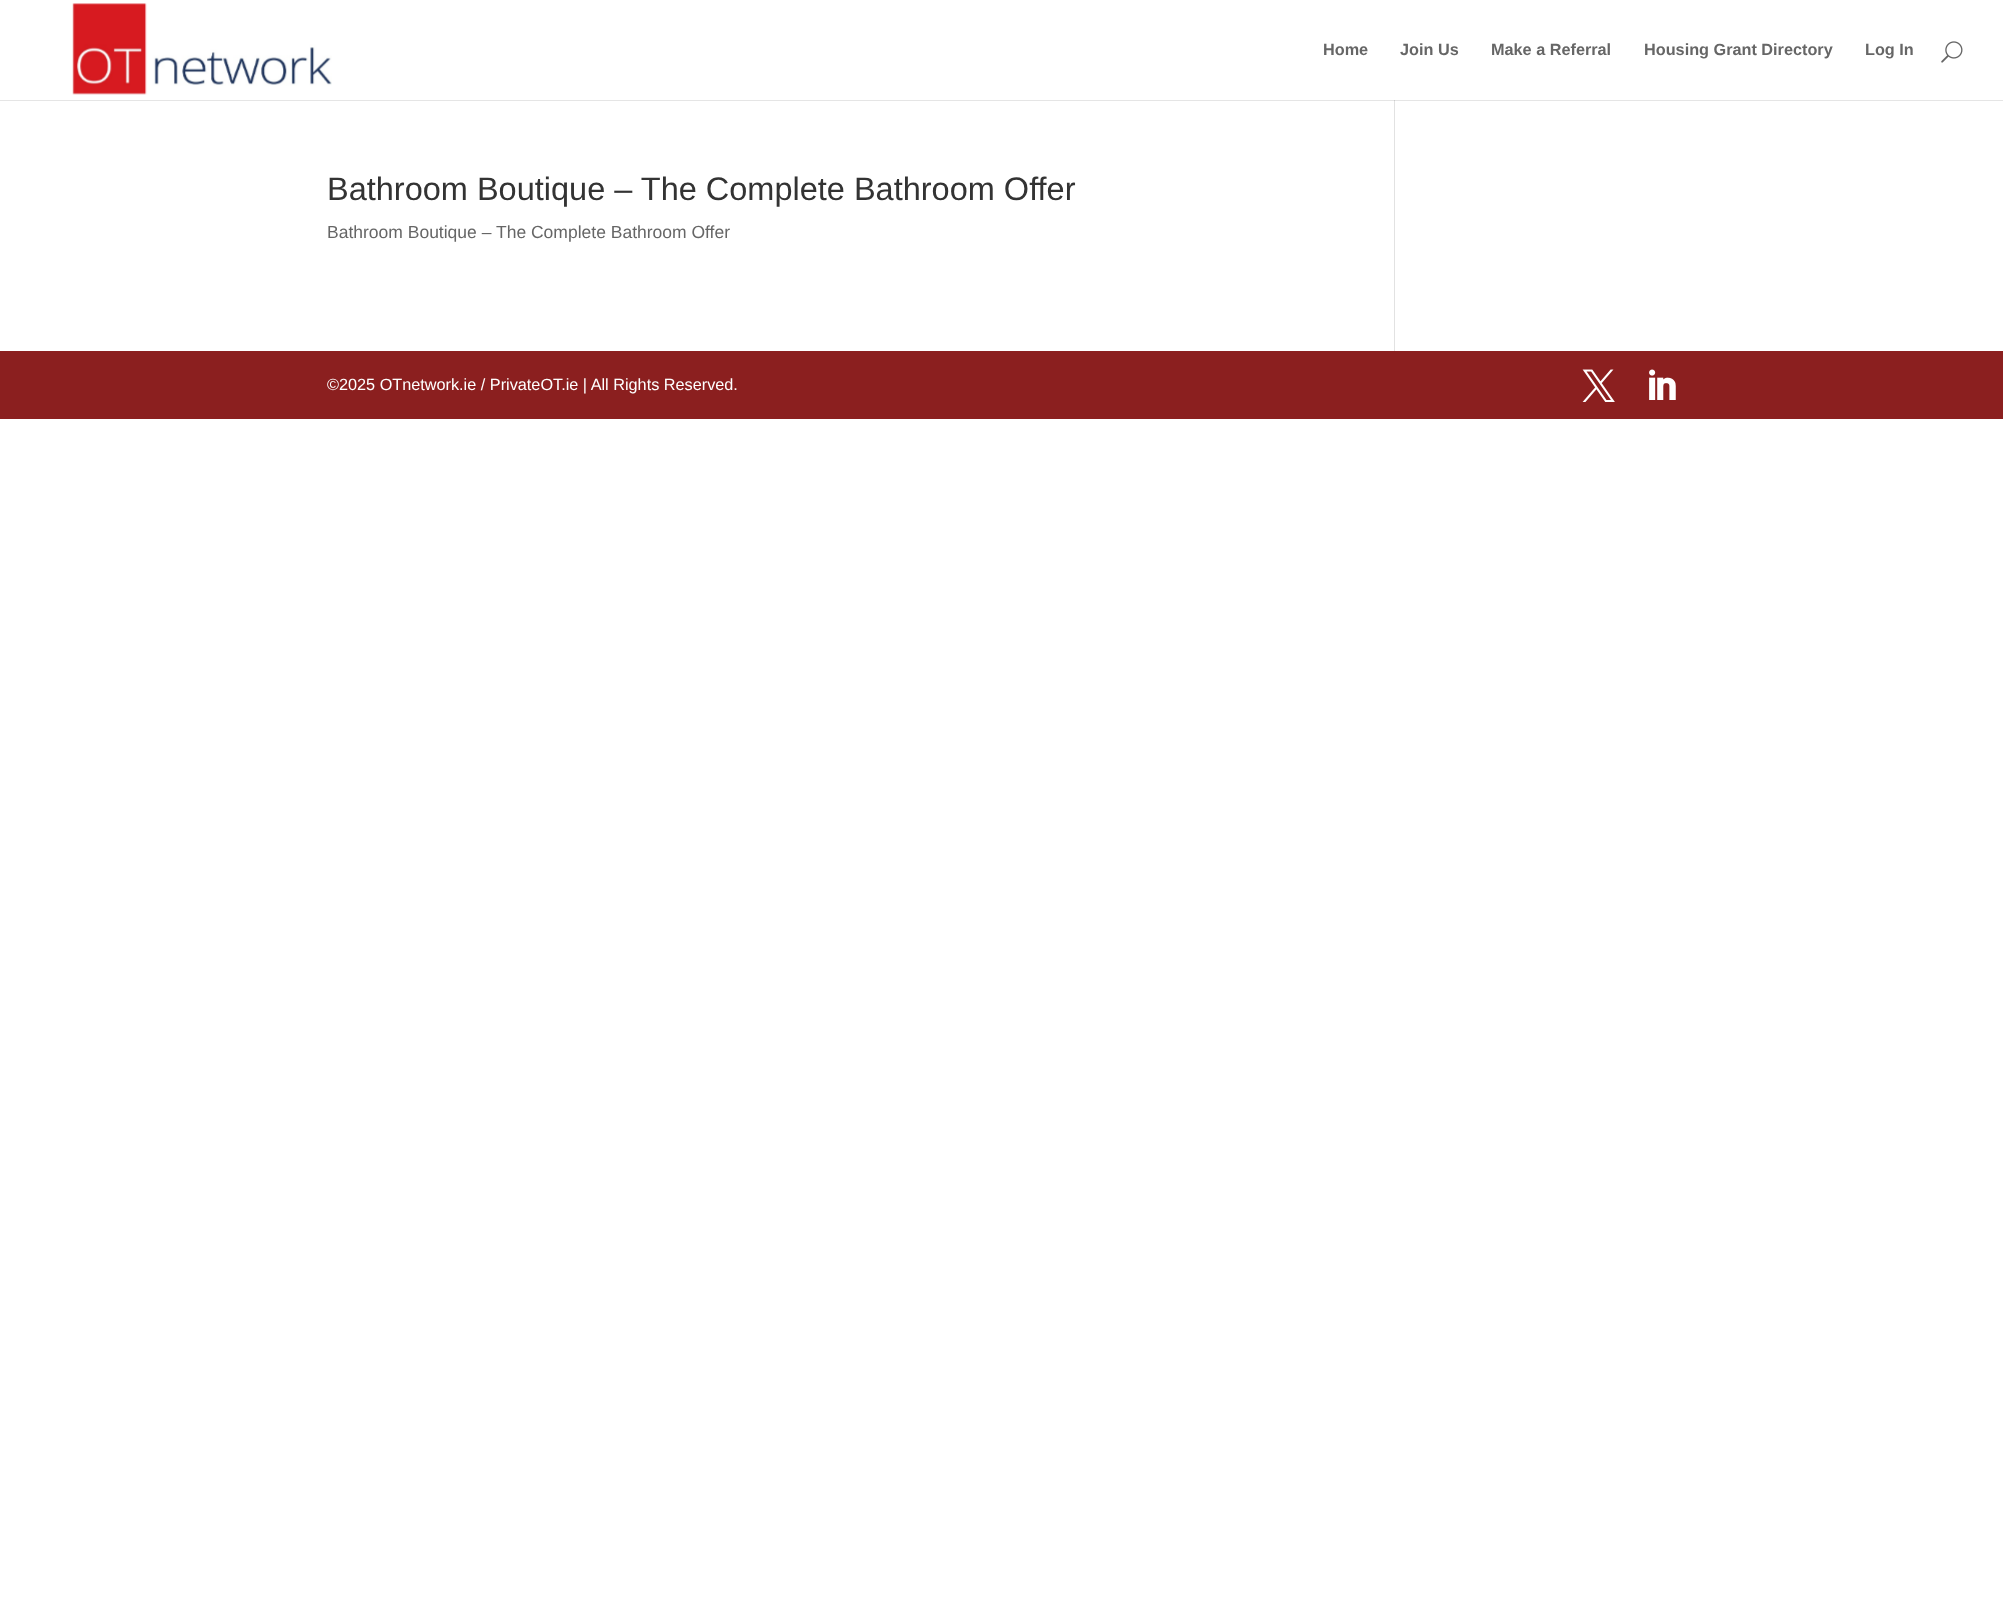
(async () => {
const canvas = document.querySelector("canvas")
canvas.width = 2003
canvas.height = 1610
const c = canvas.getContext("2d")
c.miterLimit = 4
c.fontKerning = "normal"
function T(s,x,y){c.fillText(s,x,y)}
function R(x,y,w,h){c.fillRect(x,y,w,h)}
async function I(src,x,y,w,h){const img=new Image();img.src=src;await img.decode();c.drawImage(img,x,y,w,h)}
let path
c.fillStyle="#fff"
R(0,0,2003,1610)
c.fillStyle="#e2e2e2"
R(1394,100,1,251)
c.fillStyle="#0000001a"
path = new Path2D("M0 100v1h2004v-100v99z")
c.fill(path)
await I("1.png",72,3,260,92)
c.font="bold 16.25px Liberation Sans"
c.fillStyle="#666"
T("Home",1323,55)
T("Join Us",1400,55)
T("Make a Referral",1491,55)
T("Housing Grant Directory",1644,55)
T("Log In",1865,55)
await I("2.png",1941,41,22,22)
c.font="32.5px Liberation Sans"
c.fillStyle="#333"
T("Bathroom Boutique – The Complete Bathroom Offer",327,200)
c.font="17.5px Liberation Sans"
c.fillStyle="#666"
T("Bathroom Boutique – The Complete Bathroom Offer",327,238)
c.fillStyle="#8b1f1f"
R(0,351,2003,68)
c.font="16.25px Liberation Sans"
c.fillStyle="#fff"
T("©2025 OTnetwork.ie / PrivateOT.ie | All Rights Reserved.",327,390)
await I("3.png",1582,369,33,33)
await I("4.png",1649,369,27,31)
})()
